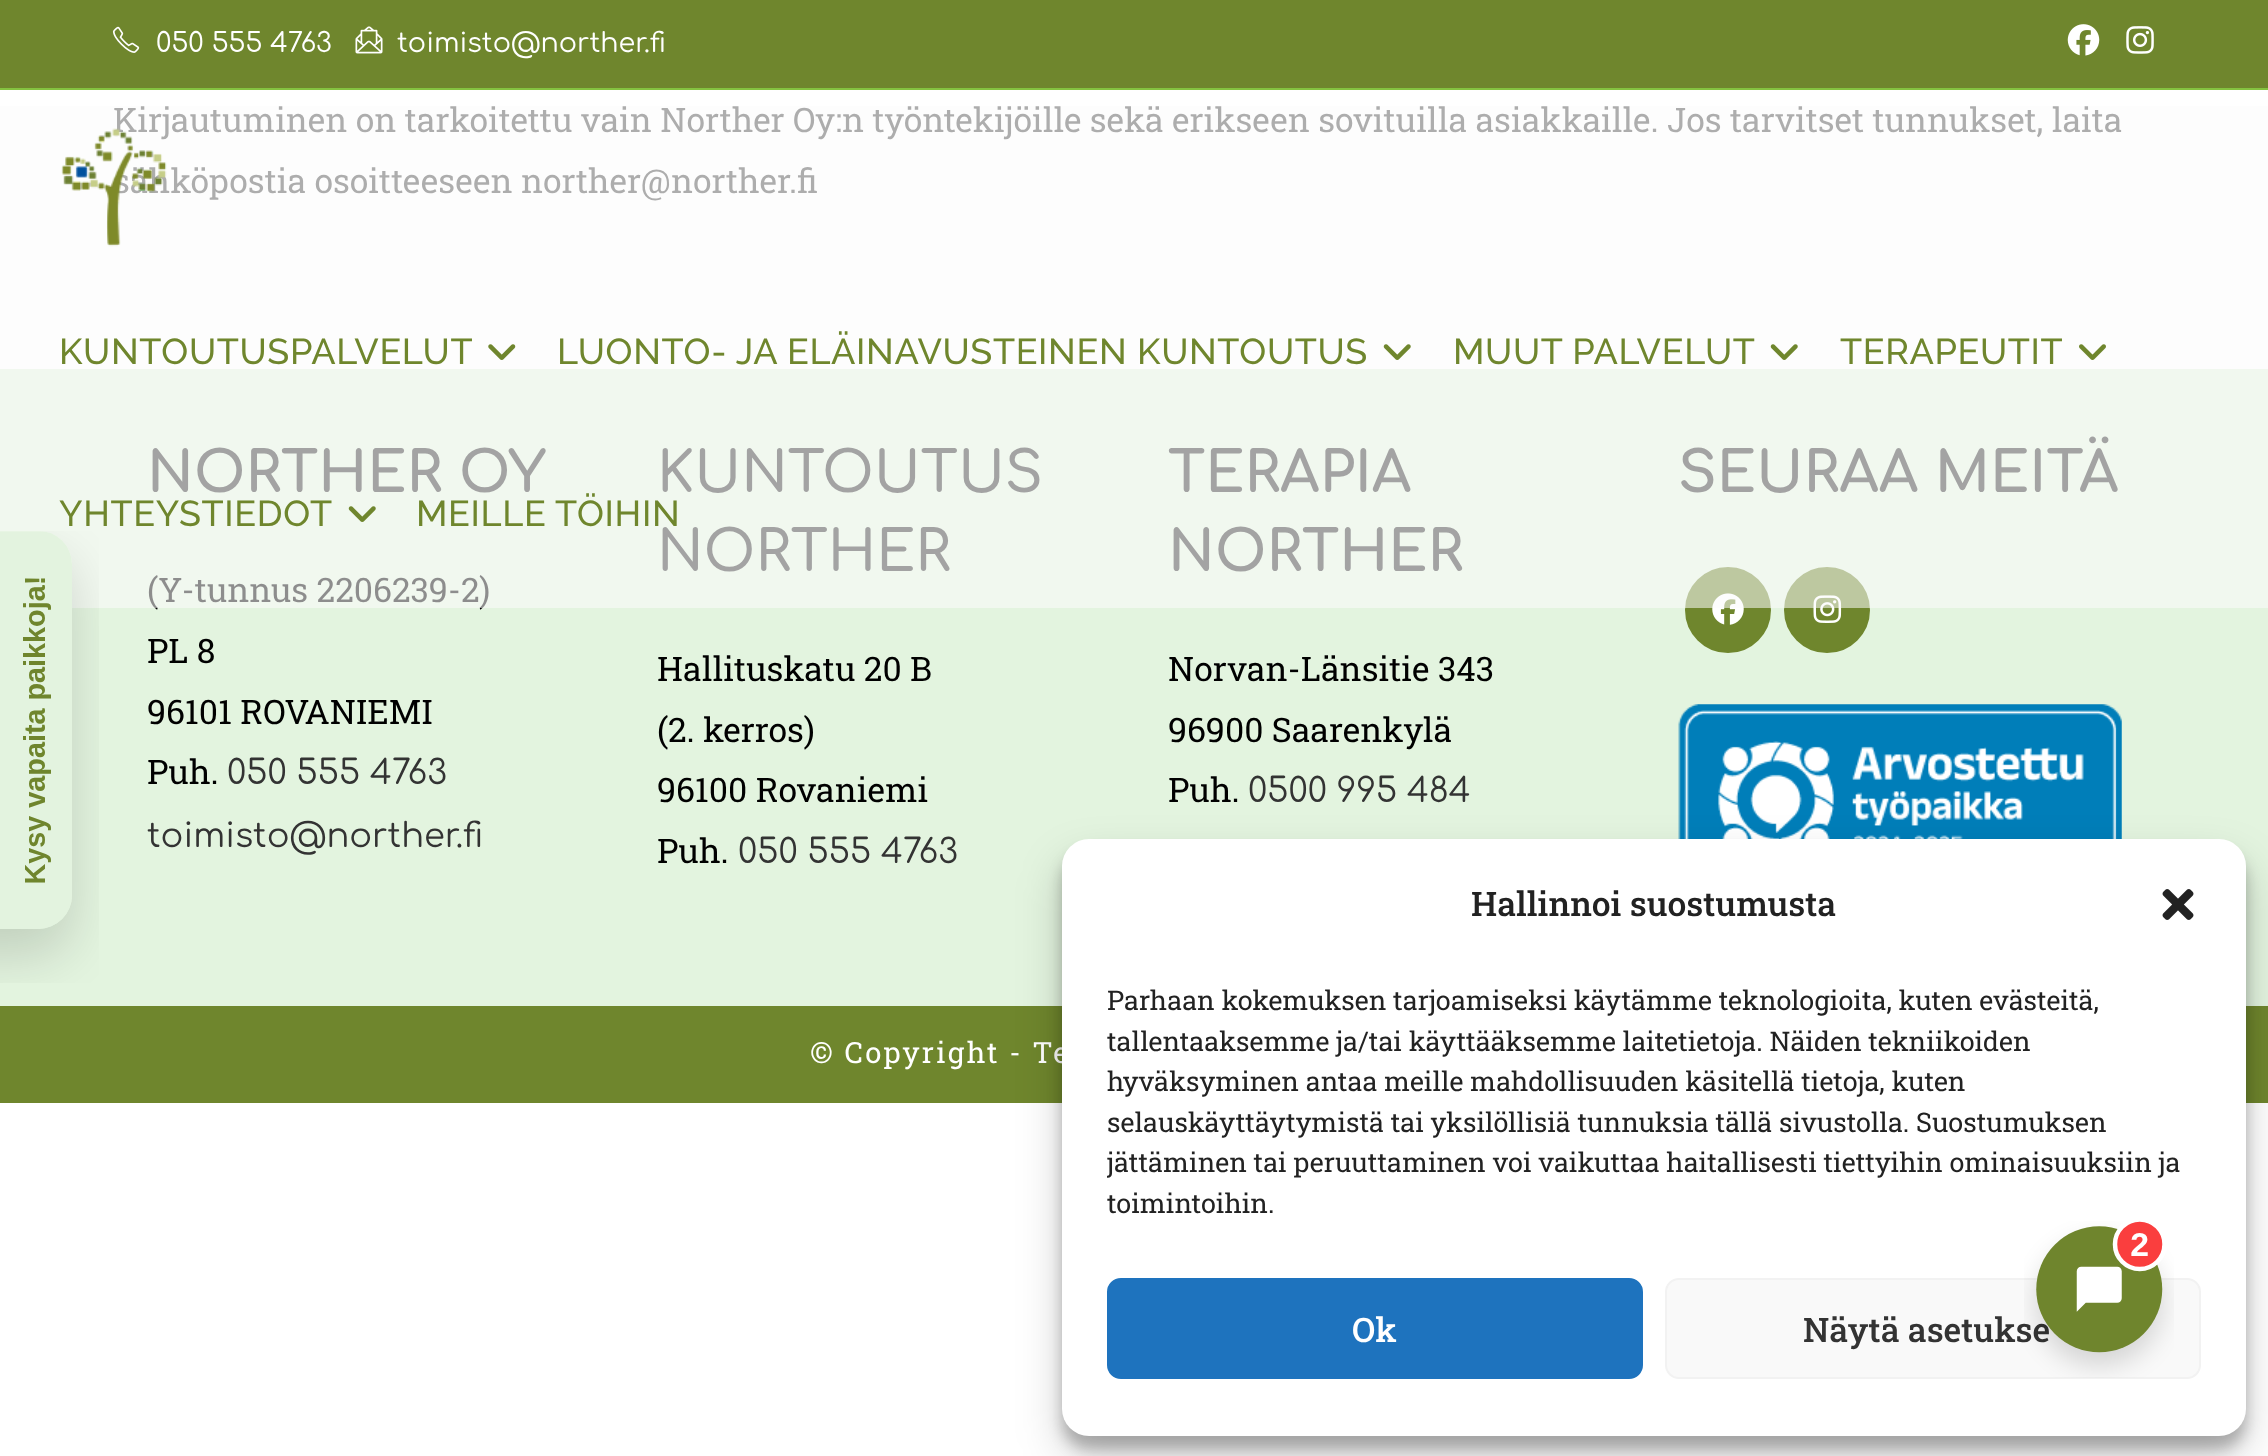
(async () => {
const canvas = document.querySelector("canvas")
canvas.width = 2268
canvas.height = 1456
const c = canvas.getContext("2d")
c.miterLimit = 4
c.fontKerning = "normal"
function T(s,x,y){c.fillText(s,x,y)}
function R(x,y,w,h){c.fillRect(x,y,w,h)}
function Q(x,y,w,h,r){c.beginPath();c.roundRect(x,y,w,h,r);c.fill()}
async function I(src,x,y,w,h){const img=new Image();img.src=src;await img.decode();c.drawImage(img,x,y,w,h)}
c.fillStyle="#fff"
R(0,0,2268,1456)
c.font="33.75px Roboto Slab"
c.fillStyle="#4a4a4a"
T("Kirjautuminen on tarkoitettu vain Norther Oy:n työntekijöille sekä erikseen sovituilla asiakkaille. Jos tarvitset tunnukset, laita",113,132)
T("sähköpostia osoitteeseen norther@norther.fi",113,193)
c.fillStyle="#e3f4df"
R(0,369,2268,637)
c.font="bold 56.25px Comfortaa"
c.fillStyle="#333"
T("NORTHER OY",147,492)
c.font="33.75px Roboto Slab"
c.fillStyle="#000"
T("(Y-tunnus 2206239-2)",147,602)
c.font="600 56.25px Comfortaa"
c.fillStyle="#333"
T("KUNTOUTUS",657,492)
T("NORTHER",657,571)
c.font="bold 56.25px Comfortaa"
T("TERAPIA",1168,492)
T("NORTHER",1168,571)
T("SEURAA MEITÄ",1678,492)
c.fillStyle="#6f862d"
c.beginPath()
c.arc(1728,610,42,0,7)
c.fill()
c.strokeStyle="#6f862d"
c.lineWidth=2
c.stroke()
await I("11.png",1712,593,32,32)
c.beginPath()
c.arc(1827,610,42,0,7)
c.fill()
c.stroke()
await I("12.png",1813,595,29,28)
c.fillStyle="#fcfcfc8f"
R(0,106,2268,502)
await I("1.png",0,531,99,452)
c.fillStyle="#6f862d"
R(0,0,2268,88)
c.fillStyle="#84c340"
R(0,88,2268,2)
await I("2.png",112,26,28,27)
c.font="27px Comfortaa"
c.fillStyle="#fff"
T("050 555 4763",156,52)
await I("3.png",355,26,28,28)
T("toimisto@norther.fi",397,52)
await I("4.png",2067,24,33,32)
await I("5.png",2126,26,28,28)
await I("6.png",61,128,106,119)
c.letterSpacing="0.65px"
c.font="500 36px Raleway"
c.fillStyle="#6f862d"
T("KUNTOUTUSPALVELUT",59,364)
await I("7.png",488,344,28,16)
T("LUONTO- JA ELÄINAVUSTEINEN KUNTOUTUS",557,364)
await I("8.png",1383,344,28,16)
T("MUUT PALVELUT",1453,364)
await I("8.png",1770,344,28,16)
T("TERAPEUTIT",1840,364)
await I("9.png",2079,344,27,16)
T("YHTEYSTIEDOT",59,526)
await I("10.png",348,506,28,16)
T("MEILLE TÖIHIN",416,526)
c.letterSpacing="0px"
c.font="33.75px Roboto Slab"
c.fillStyle="#000"
T("PL 8",147,663)
T("96101 ROVANIEMI",147,724)
T("Puh.",147,784)
c.font="33.75px Comfortaa"
c.fillStyle="#333"
T("050 555 4763",227,784)
T("toimisto@norther.fi",147,847)
c.font="33.75px Roboto Slab"
c.fillStyle="#000"
T("Hallituskatu 20 B",657,681)
T("(2. kerros)",657,742)
T("96100 Rovaniemi",657,802)
T("Puh.",657,863)
c.font="33.75px Comfortaa"
c.fillStyle="#333"
T("050 555 4763",738,863)
c.font="33.75px Roboto Slab"
c.fillStyle="#000"
T("Norvan-Länsitie 343",1168,681)
T("96900 Saarenkylä",1168,742)
T("Puh.",1168,802)
c.font="33.75px Comfortaa"
c.fillStyle="#333"
T("0500 995 484",1248,802)
await I("13.png",1678,704,444,135)
c.fillStyle="#6f862d"
R(0,1006,2268,97)
c.letterSpacing="2.25px"
c.font="29.25px Roboto Slab"
c.fillStyle="#fff"
T("© Copyright - Te",810,1063)
c.fillStyle="#0000003b"
c.filter="blur(7px)"
c.beginPath()
c.roundRect(1062,853,1184,596,27)
c.fill()
c.filter="none"
c.fillStyle="#00000030"
c.filter="blur(22.5px)"
c.beginPath()
c.roundRect(1062,862,1184,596,27)
c.fill()
c.filter="none"
c.fillStyle="#fff"
Q(1062,839,1184,597,27)
c.letterSpacing="0px"
c.font="500 33.75px Roboto Slab"
c.fillStyle="#222"
T("Hallinnoi suostumusta",1471,916)
await I("14.png",2162,889,32,31)
c.font="27px Roboto Slab"
T("Parhaan kokemuksen tarjoamiseksi käytämme teknologioita, kuten evästeitä,",1107,1010)
T("tallentaaksemme ja/tai käyttääksemme laitetietoja. Näiden tekniikoiden",1107,1051)
T("hyväksyminen antaa meille mahdollisuuden käsitellä tietoja, kuten",1107,1091)
T("selauskäyttäytymistä tai yksilöllisiä tunnuksia tällä sivustolla. Suostumuksen",1107,1132)
c.save()
c.beginPath()
c.rect(1107,979,1094,254)
c.clip()
T("jättäminen tai peruuttaminen voi vaikuttaa haitallisesti tiettyihin ominaisuuksiin ja",1107,1172)
c.restore()
T("toimintoihin.",1107,1213)
c.fillStyle="#1e73be"
c.beginPath()
c.roundRect(1108,1279,534,99,13)
c.fill()
c.strokeStyle="#1e73be"
c.stroke()
c.font="500 33.75px Roboto Slab"
c.fillStyle="#fff"
T("Ok",1352,1342)
c.fillStyle="#f9f9f9"
c.beginPath()
c.roundRect(1666,1279,534,99,13)
c.fill()
c.strokeStyle="#f2f2f2"
c.stroke()
c.fillStyle="#333"
T("Näytä asetukse",1803,1342)
await I("15.png",2024,1221,150,157)
})()
